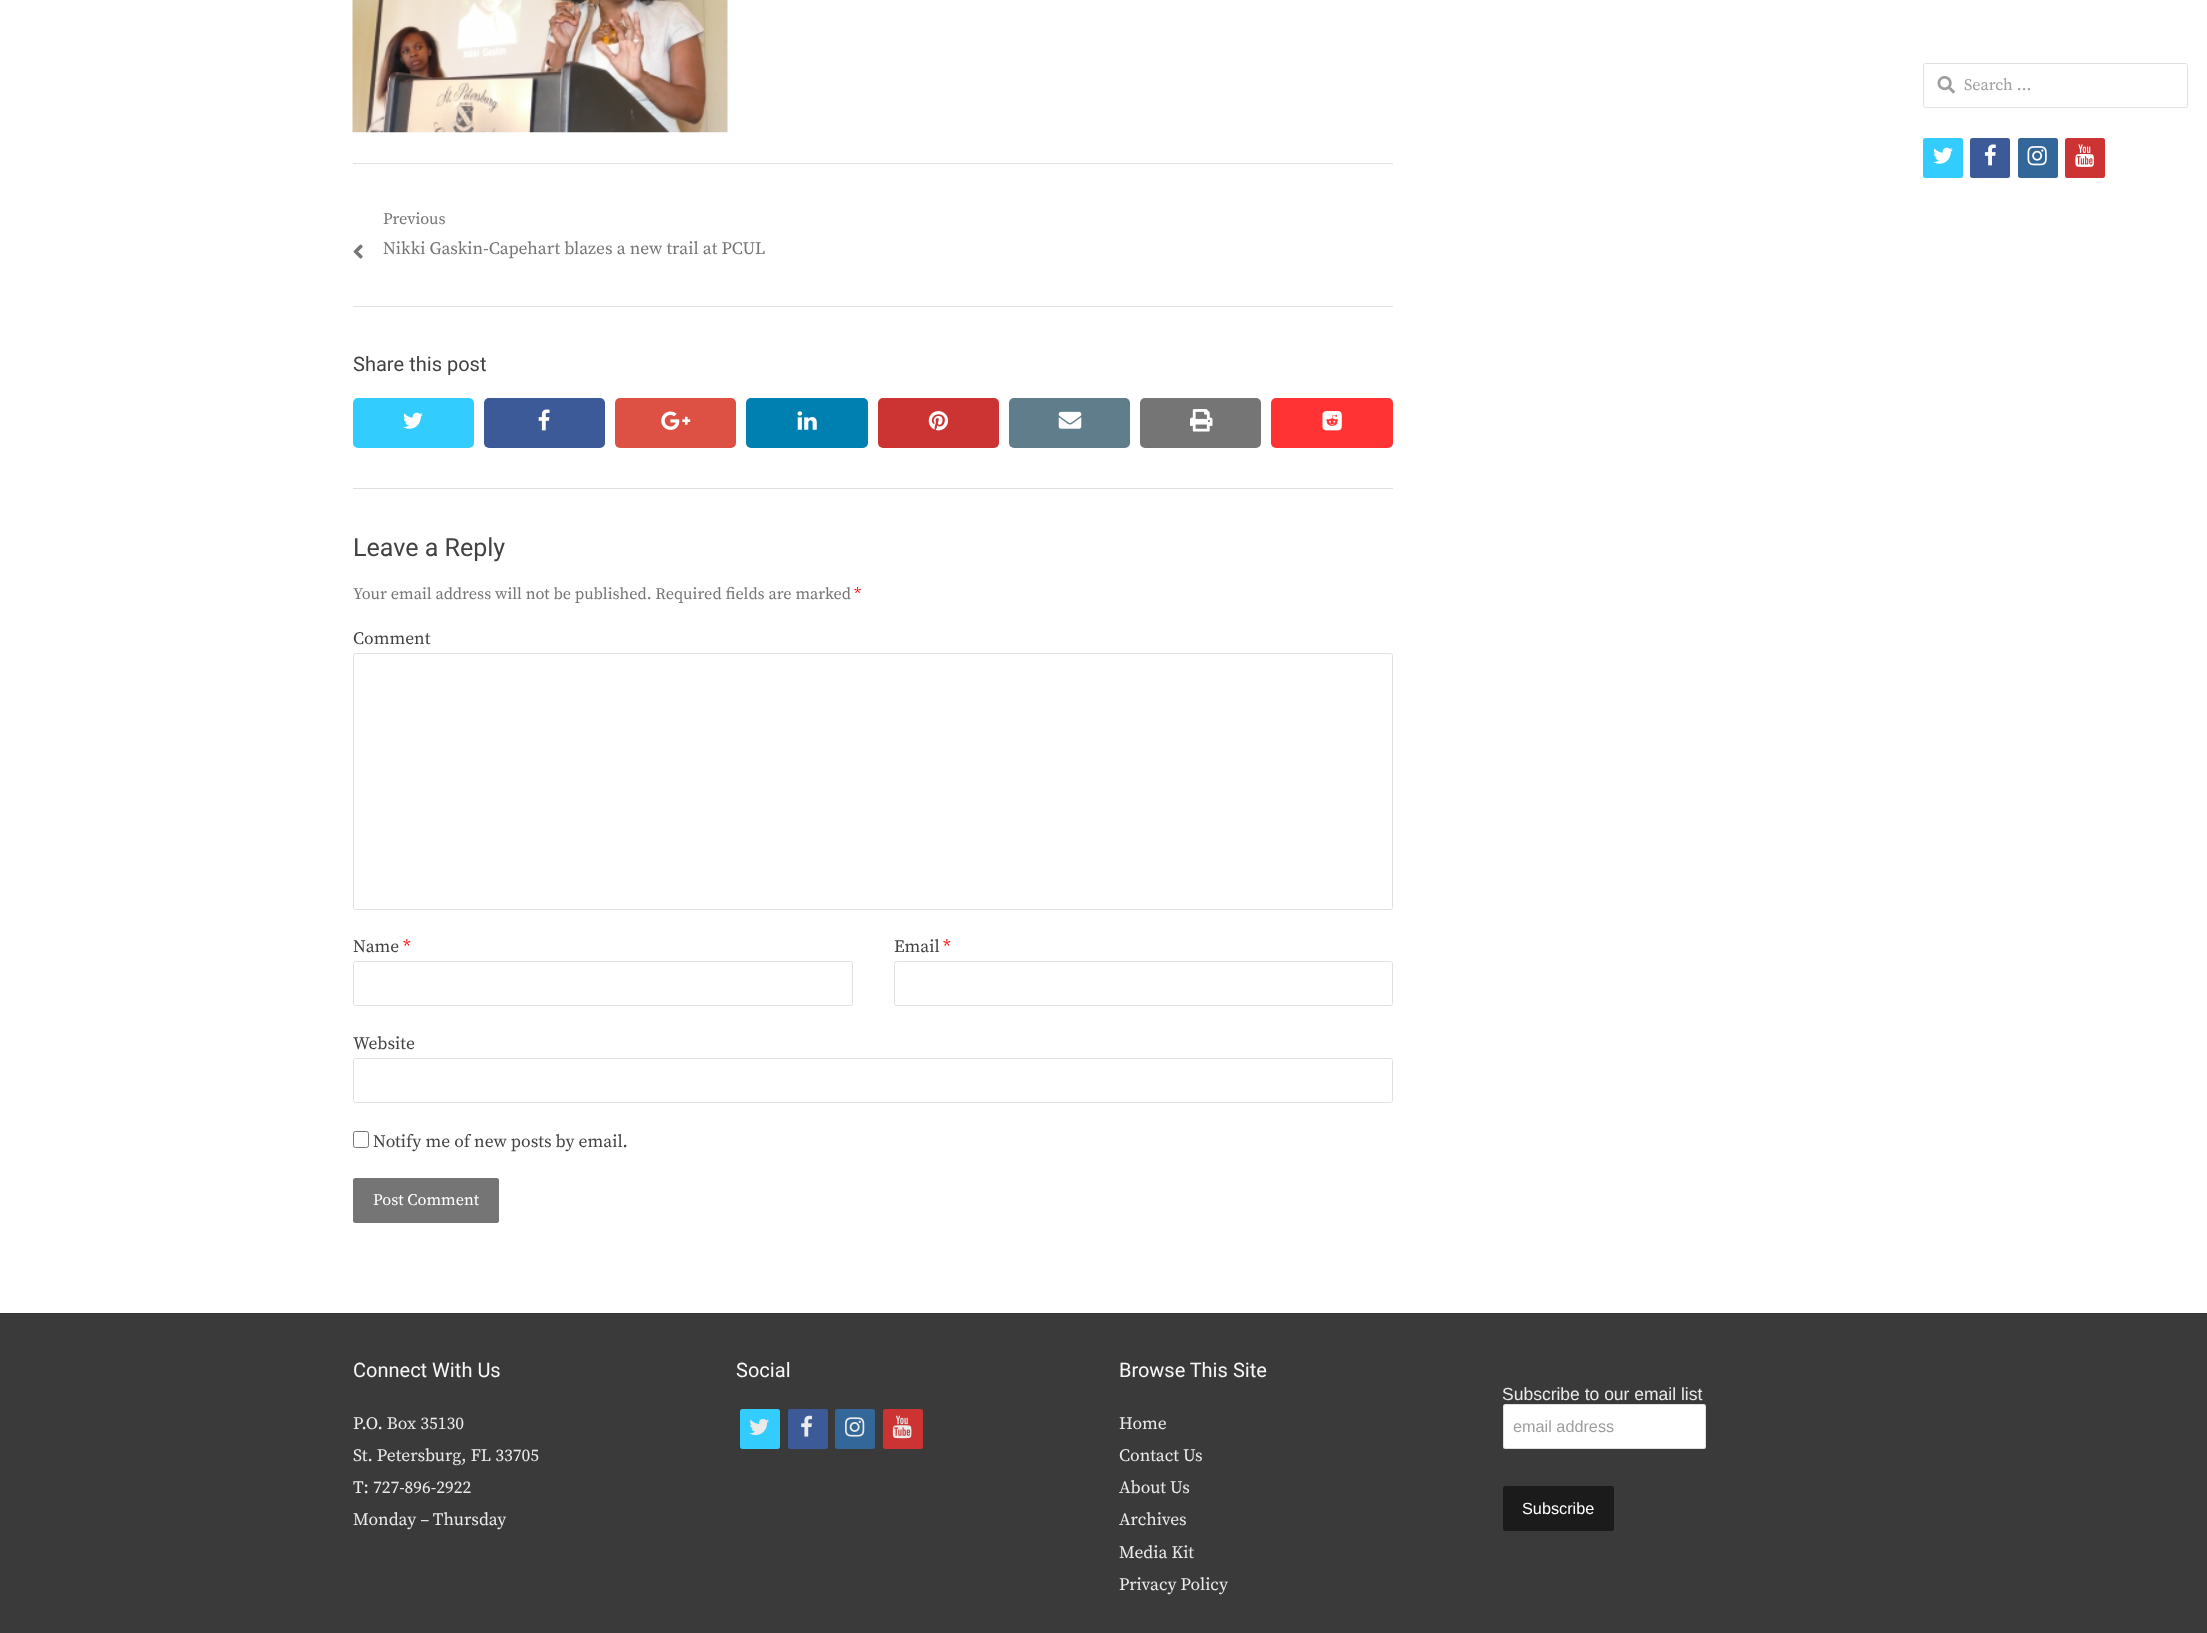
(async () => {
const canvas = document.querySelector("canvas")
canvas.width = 2207
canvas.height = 1633
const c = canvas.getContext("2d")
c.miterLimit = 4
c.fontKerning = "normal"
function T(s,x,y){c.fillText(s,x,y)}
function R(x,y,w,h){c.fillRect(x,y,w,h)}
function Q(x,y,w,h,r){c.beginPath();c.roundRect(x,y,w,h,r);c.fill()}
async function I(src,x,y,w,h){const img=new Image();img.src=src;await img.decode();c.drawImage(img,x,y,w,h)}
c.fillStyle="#fff"
R(0,0,2207,1633)
c.beginPath()
c.roundRect(1923.5,63.5,264,44,2)
c.strokeStyle="#e0e0e0"
c.stroke()
await I("1.png",1937,76,18,18)
c.font="16.25px Source Serif Pro"
c.fillStyle="#9e9e9e"
T("Search …",1964,90)
c.fillStyle="#3cf"
Q(1923,138,40,40,2.5)
await I("2.png",1933,147,20,17)
c.fillStyle="#3c5a98"
Q(1970,138,40,40,2.5)
await I("3.png",1984,144,12,22)
c.fillStyle="#369"
Q(2018,138,40,40,2.5)
await I("4.png",2027,146,20,20)
c.fillStyle="#c33"
Q(2065,138,40,40,2.5)
await I("5.png",2075,144,19,23)
c.fillStyle="#e0e0e0"
R(353,163,1040,1)
await I("6.png",352,0,376,133)
R(353,306,1040,1)
c.fillStyle="#757575"
T("Previous",383,224)
await I("7.png",353,244,10,15)
c.font="17.5px Source Serif Pro"
T("Nikki Gaskin-Capehart blazes a new trail at PCUL",383,254)
c.font="20px Heebo"
c.fillStyle="#424242"
T("Share this post",353,371)
c.fillStyle="#e0e0e0"
R(353,488,1040,1)
c.fillStyle="#3cf"
Q(353,398,121,50,5)
await I("2.png",403,412,20,17)
c.fillStyle="#3c5a98"
Q(484,398,121,50,5)
await I("8.png",538,409,12,22)
c.fillStyle="#dd5044"
Q(615,398,121,50,5)
await I("9.png",661,411,30,19)
c.fillStyle="#007fb1"
Q(746,398,122,50,5)
await I("10.png",797,411,20,19)
c.fillStyle="#c33"
Q(878,398,121,50,5)
await I("11.png",928,411,20,20)
c.fillStyle="#607d8b"
Q(1009,398,121,50,5)
await I("12.png",1058,411,24,18)
c.fillStyle="#757575"
Q(1140,398,121,50,5)
await I("13.png",1190,409,23,23)
c.fillStyle="#f33"
Q(1271,398,122,50,5)
await I("14.png",1322,411,20,20)
c.font="25px Heebo"
c.fillStyle="#424242"
T("Leave a Reply",353,556)
c.font="16.25px Source Serif Pro"
c.fillStyle="#757575"
T("Your email address will not be published. Required fields are marked",353,599)
c.fillStyle="#f00"
T("*",854,599)
c.font="17.5px Source Serif Pro"
c.fillStyle="#424242"
T("Comment",353,644)
c.beginPath()
c.roundRect(353.5,653.5,1039,256,2)
c.stroke()
T("Name",353,952)
c.fillStyle="#f00"
T("*",403,952)
c.beginPath()
c.roundRect(353.5,961.5,499,44,2)
c.stroke()
c.fillStyle="#424242"
T("Email",894,952)
c.fillStyle="#f00"
T("*",943,952)
c.beginPath()
c.roundRect(894.5,961.5,498,44,2)
c.stroke()
c.fillStyle="#424242"
T("Website",353,1049)
c.beginPath()
c.roundRect(353.5,1058.5,1039,44,2)
c.stroke()
c.beginPath()
c.roundRect(353.5,1131.5,15,16,2)
c.strokeStyle="#767676"
c.stroke()
T("Notify me of new posts by email.",373,1147)
c.fillStyle="#757575"
Q(353,1178,146,45,2.5)
c.font="16.25px Source Serif Pro"
c.fillStyle="#fff"
T("Post Comment",373,1205)
c.fillStyle="#3a3a3a"
R(0,1314,2207,319)
c.fillStyle="#333"
R(0,1313,2207,1)
c.font="20px Heebo"
c.fillStyle="#f7f7f7"
T("Connect With Us",353,1377)
c.font="17.5px Source Serif Pro"
c.fillStyle="#eaeaea"
T("P.O. Box 35130",353,1429)
T("St. Petersburg, FL 33705",353,1461)
T("T: 727-896-2922",353,1493)
T("Monday – Thursday",353,1525)
c.font="20px Heebo"
c.fillStyle="#f7f7f7"
T("Social",736,1377)
c.fillStyle="#3cf"
Q(740,1409,40,40,2.5)
await I("15.png",749,1418,20,17)
c.fillStyle="#3c5a98"
Q(788,1409,40,40,2.5)
await I("16.png",801,1415,12,22)
c.fillStyle="#369"
Q(835,1409,40,40,2.5)
await I("17.png",845,1417,20,20)
c.fillStyle="#c33"
Q(883,1409,40,40,2.5)
await I("18.png",892,1415,20,24)
c.fillStyle="#f7f7f7"
T("Browse This Site",1119,1377)
c.font="17.5px Source Serif Pro"
c.fillStyle="#eaeaea"
T("Home",1119,1429)
T("Contact Us",1119,1461)
T("About Us",1119,1493)
T("Archives",1119,1525)
T("Media Kit",1119,1558)
T("Privacy Policy",1119,1590)
c.font="17.5px Liberation Sans"
T("Subscribe to our email list",1502,1400)
c.fillStyle="#fff"
Q(1503,1404,203,45,2.5)
c.beginPath()
c.roundRect(1503.5,1404.5,202,44,2)
c.strokeStyle="#0000001f"
c.stroke()
c.font="16.25px Liberation Sans"
c.fillStyle="#9e9e9e"
T("email address",1513,1432)
c.fillStyle="#1b1b1b"
Q(1503,1486,111,45,2.5)
c.fillStyle="#fff"
T("Subscribe",1522,1514)
})()
